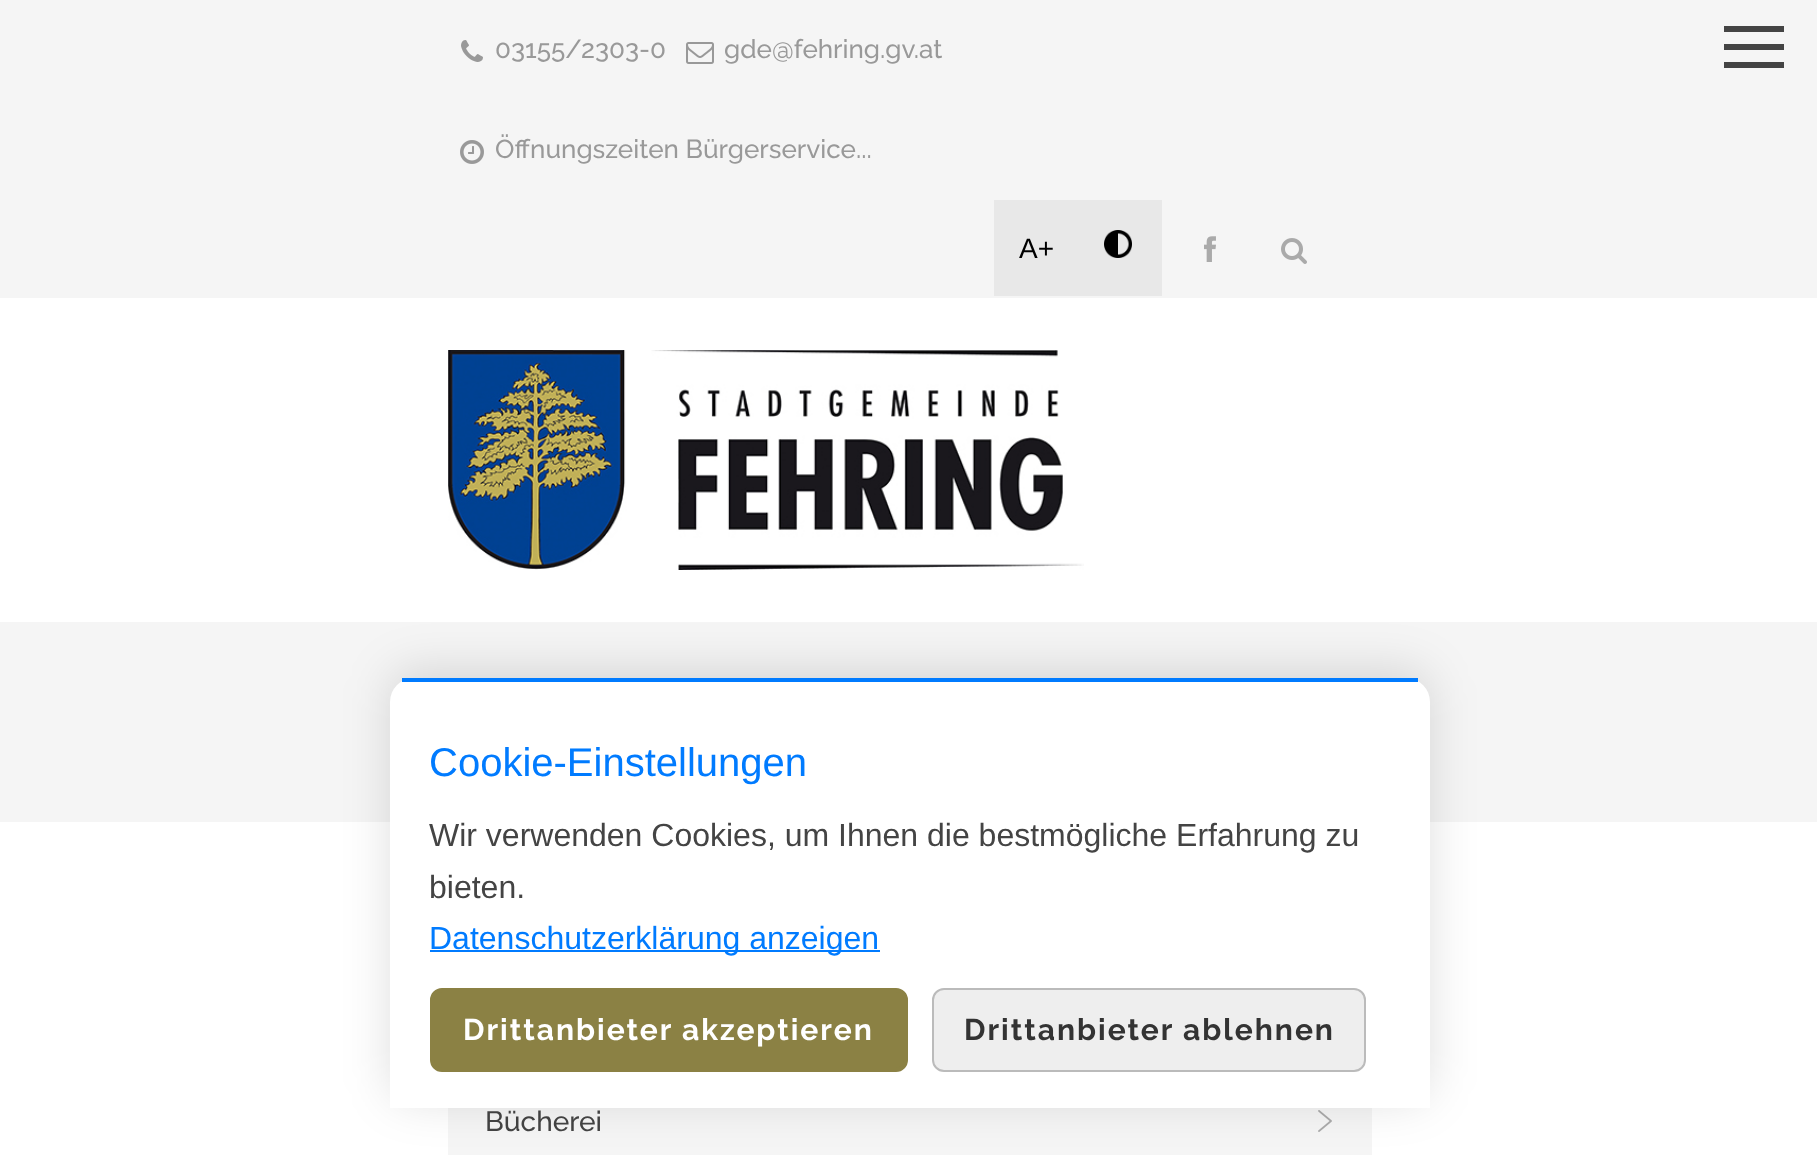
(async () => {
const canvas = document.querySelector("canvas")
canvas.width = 1817
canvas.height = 1155
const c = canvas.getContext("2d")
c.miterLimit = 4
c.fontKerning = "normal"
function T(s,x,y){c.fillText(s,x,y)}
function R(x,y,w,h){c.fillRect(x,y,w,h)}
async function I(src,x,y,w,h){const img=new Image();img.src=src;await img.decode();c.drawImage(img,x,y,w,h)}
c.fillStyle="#fff"
R(0,0,1817,1155)
c.fillStyle="#f5f5f5"
R(0,0,1817,298)
c.fillStyle="#444"
R(1724,26,60,6)
R(1724,44,60,6)
R(1724,62,60,6)
await I("1.png",448,350,636,220)
await I("2.png",461,40,22,22)
c.font="500 26px Raleway"
c.fillStyle="#999"
T("03155/2303-0",495,58)
await I("3.png",686,42,28,22)
T("gde@fehring.gv.at",724,58)
await I("4.png",460,140,24,24)
T("Öffnungszeiten Bürgerservice...",495,158)
c.fillStyle="#e8e8e8"
R(994,200,168,96)
c.font="28px Liberation Sans"
c.fillStyle="#000"
T("A+",1019,258)
await I("5.png",1104,230,28,28)
await I("6.png",1204,236,12,26)
await I("7.png",1281,238,26,26)
c.fillStyle="#f5f5f5"
R(0,622,1817,200)
R(448,1108,924,47)
c.font="500 28px Raleway"
c.fillStyle="#444"
T("Bücherei",485,1131)
await I("8.png",1318,1110,14,22)
c.fillStyle="#00000021"
c.filter="blur(24px)"
c.beginPath()
c.roundRect(390,670,1040,430,24)
c.fill()
c.filter="none"
c.fillStyle="#fff"
c.beginPath()
c.roundRect(390,678,1040,430,[24,24,0,0])
c.fill()
c.fillStyle="#007bff"
R(402,678,1016,4)
c.font="40px Liberation Sans"
T("Cookie-Einstellungen",429,776)
c.font="32px Liberation Sans"
c.fillStyle="#444"
T("Wir verwenden Cookies, um Ihnen die bestmögliche Erfahrung zu",429,846)
T("bieten.",429,898)
c.fillStyle="#007bff"
R(430,950,450,2)
T("Datenschutzerklärung anzeigen",429,949)
c.fillStyle="#8b8144"
c.beginPath()
c.roundRect(432,990,474,80,10)
c.fill()
c.strokeStyle="#8b8144"
c.lineWidth=4
c.stroke()
c.letterSpacing="2px"
c.font="bold 30px Raleway"
c.fillStyle="#fff"
T("Drittanbieter akzeptieren",463,1040)
c.fillStyle="#eee"
c.beginPath()
c.roundRect(933,989,432,82,11)
c.fill()
c.strokeStyle="#bbb"
c.lineWidth=2
c.stroke()
c.fillStyle="#333"
T("Drittanbieter ablehnen",964,1040)
})()
